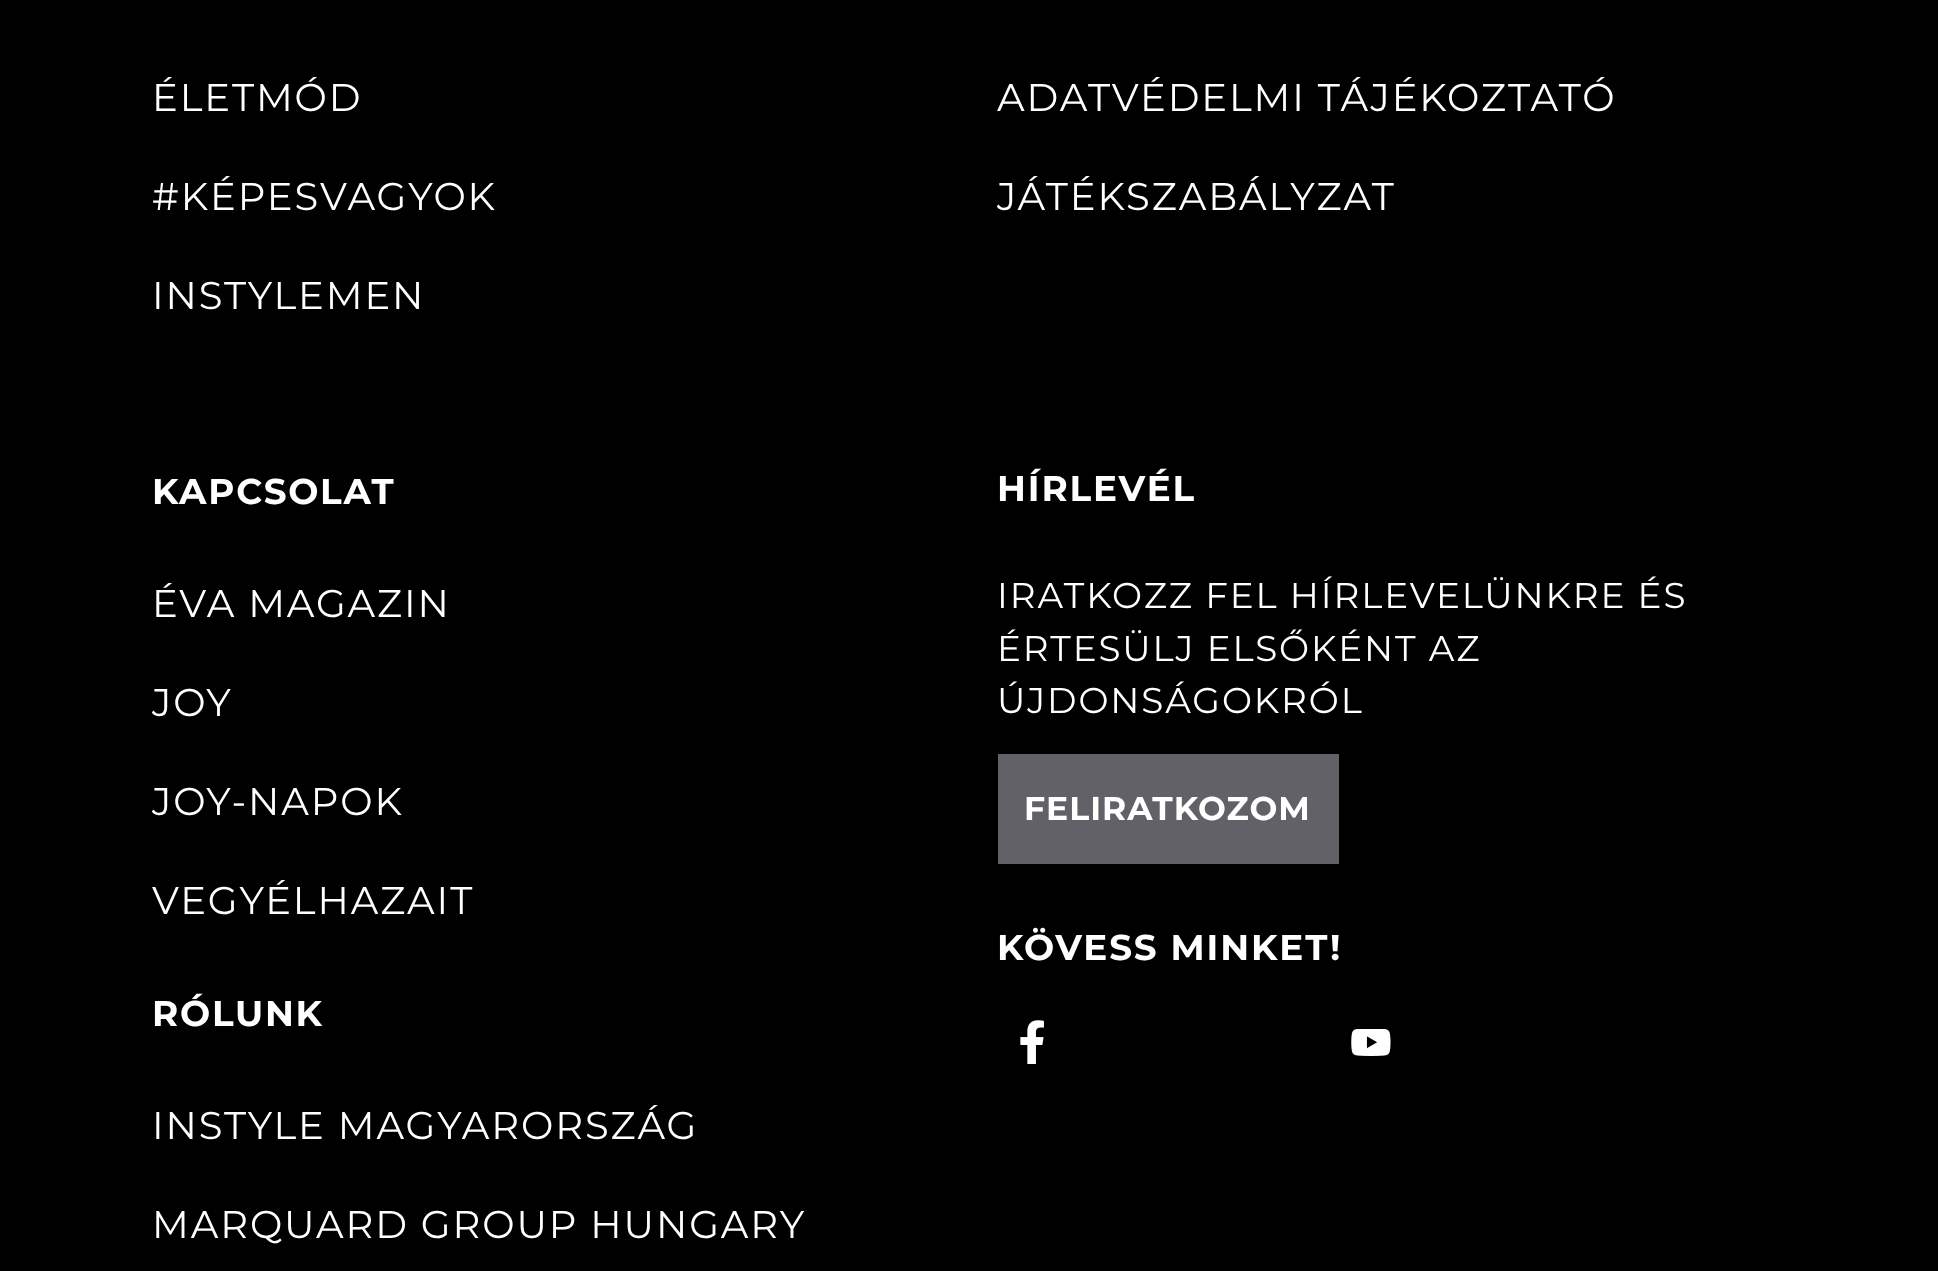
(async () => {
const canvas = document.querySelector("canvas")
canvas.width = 1938
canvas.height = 1271
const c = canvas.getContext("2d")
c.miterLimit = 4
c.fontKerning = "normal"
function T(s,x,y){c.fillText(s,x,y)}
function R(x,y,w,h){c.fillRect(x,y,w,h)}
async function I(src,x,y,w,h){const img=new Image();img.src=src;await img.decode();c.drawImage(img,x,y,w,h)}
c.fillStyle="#000"
R(0,0,1938,1271)
c.letterSpacing="1.9px"
c.font="38.5px Montserrat"
c.fillStyle="#fff"
T("ÉLETMÓD",152,111)
T("#KÉPESVAGYOK",152,210)
T("INSTYLEMEN",152,309)
T("ADATVÉDELMI TÁJÉKOZTATÓ",997,111)
T("JÁTÉKSZABÁLYZAT",997,210)
c.letterSpacing="1.75px"
c.font="bold 35.75px Montserrat"
T("KAPCSOLAT",152,504)
c.letterSpacing="1.9px"
c.font="38.5px Montserrat"
T("ÉVA MAGAZIN",152,617)
T("JOY",152,716)
T("JOY-NAPOK",152,815)
T("VEGYÉLHAZAIT",152,914)
c.letterSpacing="1.75px"
c.font="bold 35.75px Montserrat"
T("RÓLUNK",152,1026)
c.letterSpacing="1.9px"
c.font="38.5px Montserrat"
T("INSTYLE MAGYARORSZÁG",152,1139)
T("MARQUARD GROUP HUNGARY",152,1238)
c.font="bold 35.75px Montserrat"
T("HÍRLEVÉL",997,501)
c.font="35.75px Montserrat"
T("IRATKOZZ FEL HÍRLEVELÜNKRE ÉS",997,608)
T("ÉRTESÜLJ ELSŐKÉNT AZ",997,661)
T("ÚJDONSÁGOKRÓL",997,713)
c.fillStyle="#616167"
R(998,754,341,110)
c.letterSpacing="1px"
c.font="bold 33px Montserrat"
c.fillStyle="#fff"
T("FELIRATKOZOM",1024,820)
c.letterSpacing="1.9px"
c.font="bold 35.75px Montserrat"
T("KÖVESS MINKET!",997,960)
await I("1.png",1020,1020,24,44)
await I("2.png",1351,1029,40,27)
})()
